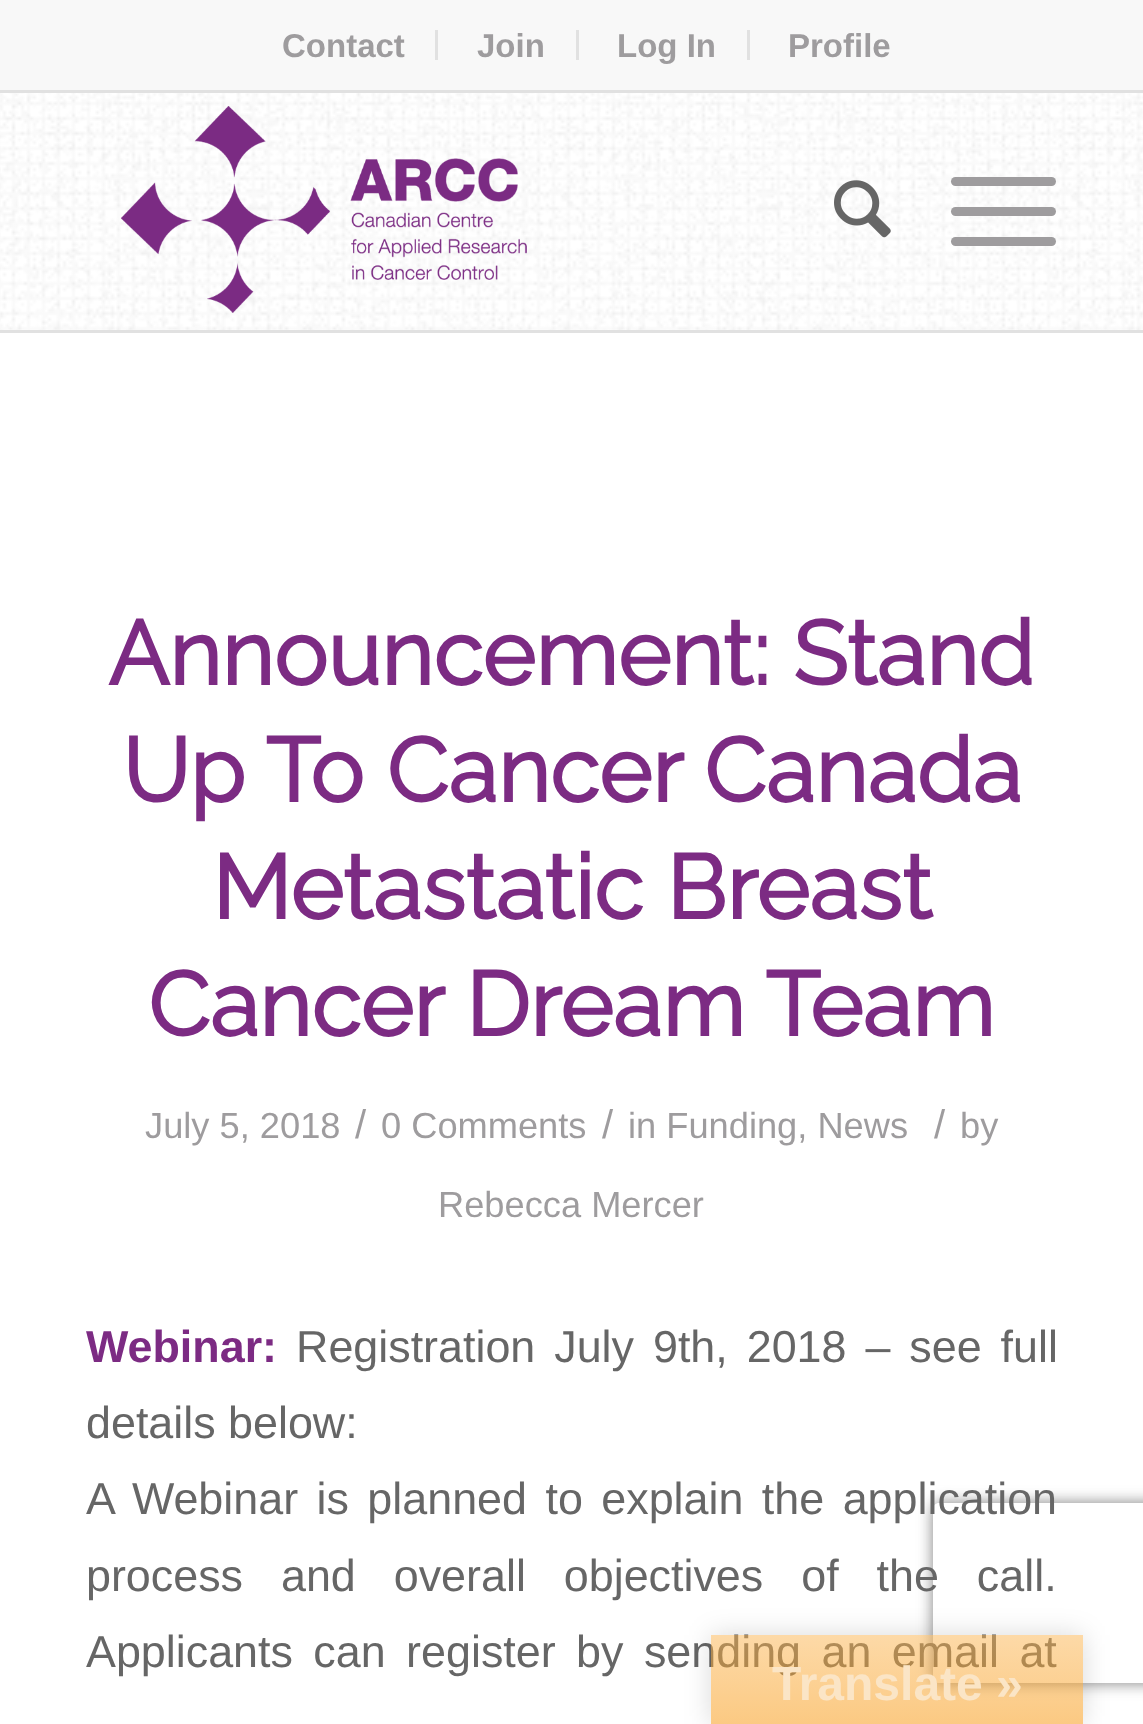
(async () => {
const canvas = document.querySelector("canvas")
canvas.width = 1143
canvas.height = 1724
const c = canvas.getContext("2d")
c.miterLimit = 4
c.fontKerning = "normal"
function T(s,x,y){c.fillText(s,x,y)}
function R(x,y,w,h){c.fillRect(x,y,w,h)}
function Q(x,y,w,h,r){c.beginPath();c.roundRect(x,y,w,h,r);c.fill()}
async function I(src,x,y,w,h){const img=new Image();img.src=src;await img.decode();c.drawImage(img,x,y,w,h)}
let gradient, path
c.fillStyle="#fff"
R(0,0,1143,1724)
c.fillStyle="#f8f8f8"
R(0,0,1143,90)
c.fillStyle="#e1e1e1"
R(0,90,1143,3)
R(435,30,3,30)
c.font="bold 33px Liberation Sans"
c.fillStyle="#9e9c9e"
T("Contact",282,57)
c.fillStyle="#e1e1e1"
R(576,30,3,30)
c.fillStyle="#9e9c9e"
T("Join",477,57)
c.fillStyle="#e1e1e1"
R(747,30,3,30)
c.fillStyle="#9e9c9e"
T("Log In",617,57)
T("Profile",788,57)
await I("1.png",0,93,1143,237)
c.fillStyle="#e1e1e1"
R(0,330,1143,3)
await I("2.png",121,106,406,207)
await I("3.png",834,180,57,58)
c.fillStyle="#9e9c9e"
Q(951,207,105,9,4.5)
Q(951,177,105,9,4.5)
Q(951,237,105,9,4.5)
c.font="bold 90px Raleway"
c.fillStyle="#7c2b83"
T("Announcement: Stand",108,685)
T("Up To Cancer Canada",122,802)
T("Metastatic Breast",212,919)
T("Cancer Dream Team",148,1036)
c.font="36.25px Liberation Sans"
c.fillStyle="#9e9c9e"
T("July 5, 2018",145,1138)
c.font="40px Liberation Sans"
T("/",355,1138)
c.font="36.25px Liberation Sans"
T("0 Comments",381,1138)
c.font="40px Liberation Sans"
T("/",602,1138)
c.font="36.25px Liberation Sans"
T("in Funding, News",628,1138)
c.font="40px Liberation Sans"
T("/",934,1138)
c.font="36.25px Liberation Sans"
T("by",960,1138)
T("Rebecca Mercer",438,1217)
c.font="bold 44.85px Liberation Sans"
c.fillStyle="#7c2b83"
T("Webinar:",86,1362)
c.wordSpacing="6.5px"
c.font="44.85px Liberation Sans"
c.fillStyle="#666"
T("Registration July 9th, 2018 – see full",296,1362)
c.wordSpacing="0px"
T("details below:",86,1438)
c.save()
path = new Path2D("M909 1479h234v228h-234zm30 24h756c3.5 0 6 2.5 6 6v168c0 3.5-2.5 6-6 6h-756c-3.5 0-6-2.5-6-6v-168c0-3.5 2.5-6 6-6z")
c.clip(path,"evenodd")
c.fillStyle="#808080"
c.filter="blur(7.5px)"
c.beginPath()
c.roundRect(933,1503,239,180,6)
c.fill()
c.filter="none"
c.restore()
c.wordSpacing="6px"
T("A Webinar is planned to explain the application",86,1514)
c.wordSpacing="25.5px"
T("process and overall objectives of the call.",86,1591)
c.wordSpacing="8px"
T("Applicants can register by sending an email at",86,1667)
c.save()
path = new Path2D("M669 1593h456v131h-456zm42 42h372v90h-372z")
c.clip(path,"evenodd")
c.fillStyle="#00000026"
c.filter="blur(13.5px)"
c.beginPath()
c.rect(711,1635,372,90)
c.fill()
c.filter="none"
c.restore()
gradient = c.createLinearGradient(897,1635,897,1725)
gradient.addColorStop(0,"#fbb45080")
gradient.addColorStop(1,"#f8940680")
c.fillStyle = gradient
R(711,1635,372,89)
c.wordSpacing="0px"
c.font="bold 48px Liberation Sans"
c.fillStyle="#fbe5c6"
T("Translate »",772,1700)
})()
